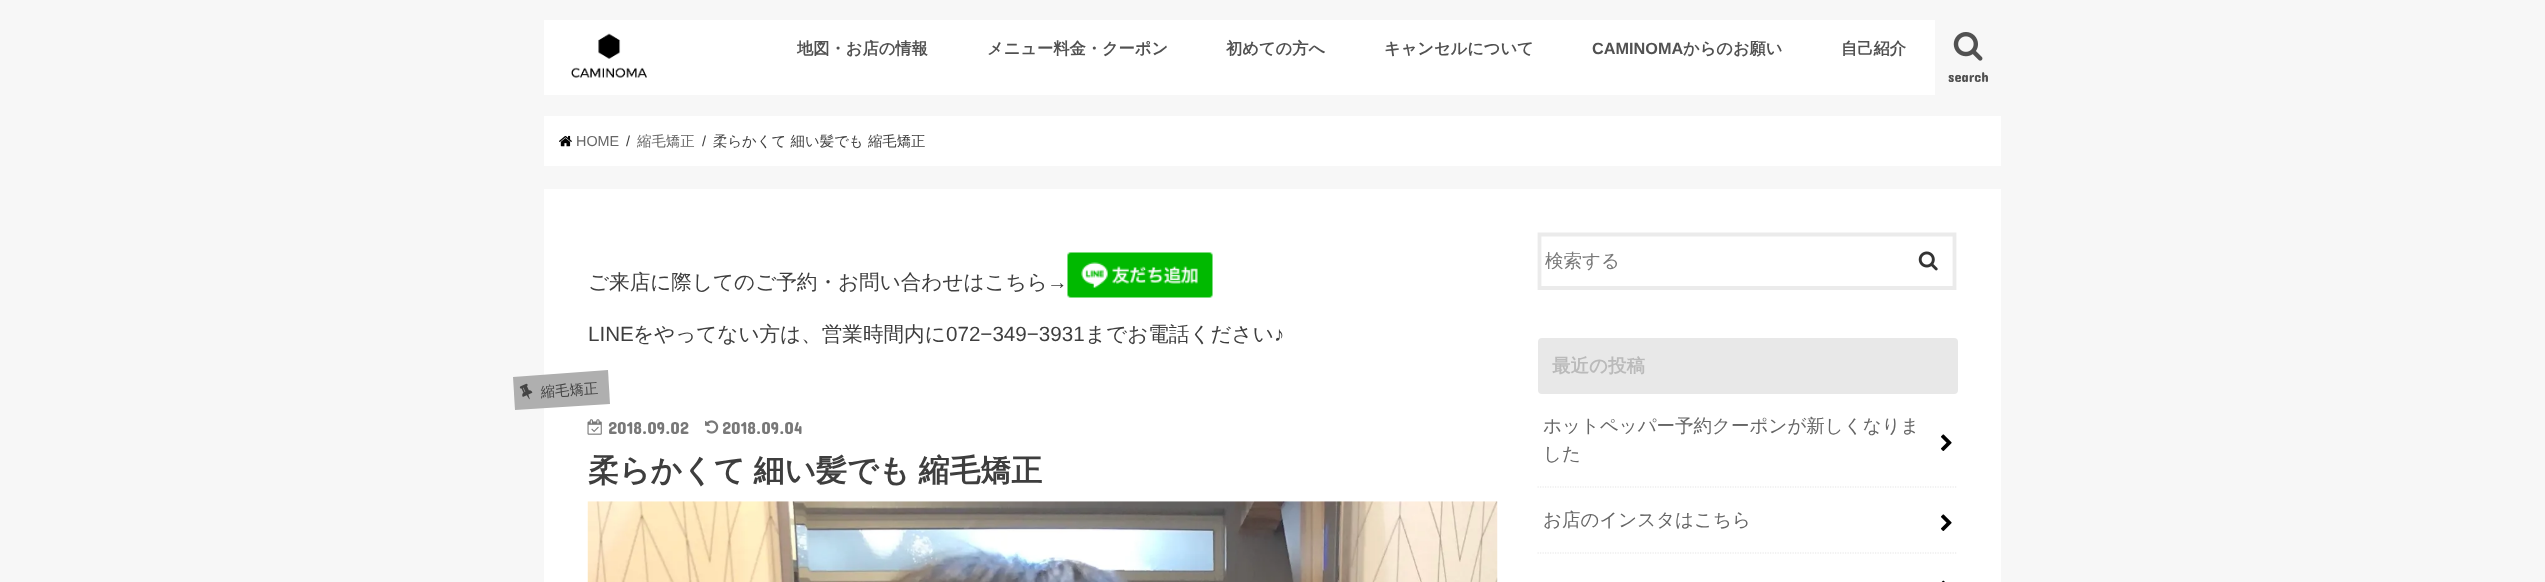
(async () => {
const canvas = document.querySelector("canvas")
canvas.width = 2545
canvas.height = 582
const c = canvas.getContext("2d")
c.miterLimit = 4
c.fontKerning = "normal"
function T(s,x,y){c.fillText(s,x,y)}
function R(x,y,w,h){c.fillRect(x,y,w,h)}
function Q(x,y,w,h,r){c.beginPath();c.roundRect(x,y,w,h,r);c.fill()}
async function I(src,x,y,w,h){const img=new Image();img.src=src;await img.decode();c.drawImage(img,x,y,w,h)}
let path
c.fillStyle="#f7f7f7"
R(0,0,2545,582)
c.fillStyle="#fff"
R(544,20,1391,75)
await I("1.png",571,33,76,45)
c.font="bold 16.25px WenQuanYi Zen Hei"
c.fillStyle="#515151"
T("地図・お店の情報",797,54)
T("メニュー料金・クーポン",987,54)
T("初めての方へ",1226,54)
T("キャンセルについて",1384,54)
c.font="bold 16.25px Liberation Sans"
T("CAMINOMA",1592,54)
c.font="bold 16.25px WenQuanYi Zen Hei"
T("からのお願い",1683,54)
T("自己紹介",1841,54)
await I("2.png",1953,32,30,29)
c.font="14.4px Concert One"
T("search",1948,82)
c.fillStyle="#fff"
R(544,116,1457,50)
await I("3.png",559,135,13,12)
c.font="14.4px Liberation Sans"
c.fillStyle="#666"
T("HOME",576,146)
c.fillStyle="#3e3e3e"
T("/",626,146)
c.font="500 14.4px WenQuanYi Zen Hei"
c.fillStyle="#666"
T("縮毛矯正",637,146)
c.font="14.4px Liberation Sans"
c.fillStyle="#3e3e3e"
T("/",702,146)
c.font="500 14.4px WenQuanYi Zen Hei"
T("柔らかくて 細い髪でも 縮毛矯正",713,146)
c.fillStyle="#ddd"
c.filter="blur(0.5px)"
c.beginPath()
c.rect(544,189,1457,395)
c.fill()
c.filter="none"
c.fillStyle="#fff"
R(544,189,1457,393)
c.font="500 20.6px WenQuanYi Zen Hei"
c.fillStyle="#3e3e3e"
T("ご来店に際してのご予約・お問い合わせはこちら",588,289)
c.font="20.6px Liberation Sans"
T("→",1047,289)
await I("4.png",1067,252,146,46)
T("LINE",588,341)
c.font="500 20.6px WenQuanYi Zen Hei"
T("をやってない方は、営業時間内に",633,341)
c.font="20.6px Liberation Sans"
T("072−349−3931",946,341)
c.font="500 20.6px WenQuanYi Zen Hei"
T("までお電話ください",1085,341)
c.font="20.6px Liberation Sans"
T("♪",1274,341)
c.fillStyle="#afafaf"
path = new Path2D("M513 377l95-7l2 34l-95 6z")
c.fill(path)
await I("5.png",519,383,14,17)
c.font="500 14.4px WenQuanYi Zen Hei"
c.fillStyle="#444"
c.save()
c.translate(541,397)
c.rotate(-4 * Math.PI / 180)
c.fillText("縮毛矯正",0,0)
c.restore()
await I("6.png",587,419,15,16)
c.font="17.5px Concert One"
c.fillStyle="#787878"
T("2018.09.02",608,434)
await I("7.png",705,420,14,14)
T("2018.09.04",722,434)
c.wordSpacing="-1px"
c.font="bold 30.9px WenQuanYi Zen Hei"
c.fillStyle="#3e3e3e"
T("柔らかくて 細い髪でも 縮毛矯正",588,481)
await I("8.png",587,501,911,81)
path = new Path2D("M1539.5 234.5h415v53.5h-415z")
c.strokeStyle="#ebebeb"
c.lineWidth=3.8
c.stroke(path)
c.wordSpacing="0px"
c.font="500 18.5px WenQuanYi Zen Hei"
c.fillStyle="#787878"
T("検索する",1545,267)
await I("9.png",1918,251,20,20)
c.fillStyle="#e8e8e8"
Q(1538,338,420,56,4)
c.font="bold 18.5px WenQuanYi Zen Hei"
c.fillStyle="#bababa"
T("最近の投稿",1552,372)
path = new Path2D("M1537.5 487h420")
c.strokeStyle="#e5e5e5"
c.lineWidth=1.2
c.setLineDash([1.25,1.25])
c.stroke(path)
c.font="500 18.5px WenQuanYi Zen Hei"
c.fillStyle="#666"
T("ホットペッパー予約クーポンが新しくなりま",1543,432)
await I("10.png",1941,434,11,17)
T("した",1543,460)
path = new Path2D("M1537.5 553h420")
c.stroke(path)
T("お店のインスタはこちら",1543,526)
await I("10.png",1941,514,11,17)
await I("11.png",1941,580,4,2)
})()
